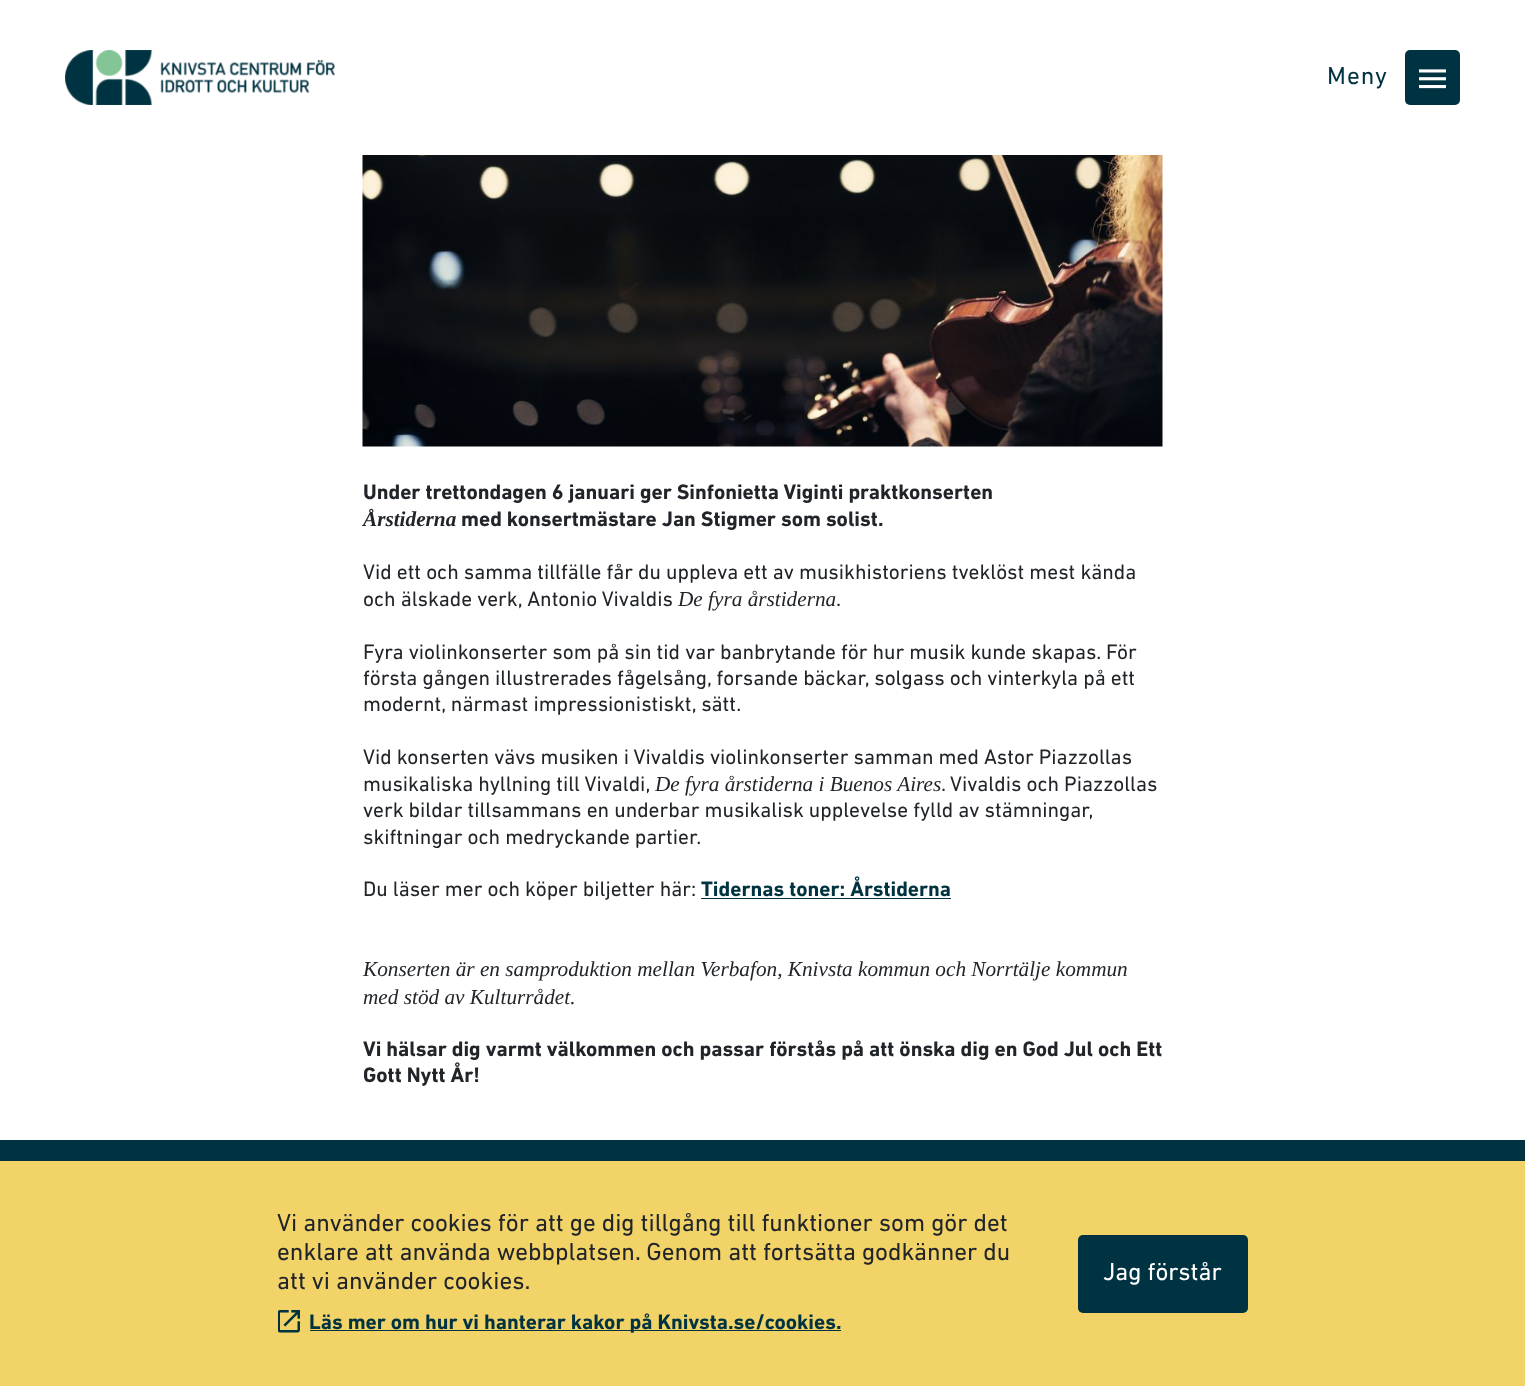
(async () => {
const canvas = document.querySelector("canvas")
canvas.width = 1525
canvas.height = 1386
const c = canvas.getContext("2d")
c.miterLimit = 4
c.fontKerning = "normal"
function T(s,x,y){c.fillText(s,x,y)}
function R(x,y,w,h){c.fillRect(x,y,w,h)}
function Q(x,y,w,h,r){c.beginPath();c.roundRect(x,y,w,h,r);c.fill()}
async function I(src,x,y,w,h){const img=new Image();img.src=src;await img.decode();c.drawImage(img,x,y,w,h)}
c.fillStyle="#fff"
R(0,0,1525,1386)
await I("1.png",65,50,270,55)
c.fillStyle="#003341"
Q(1405,50,55,55,5)
c.letterSpacing="1px"
c.font="25px DIN Next"
T("Meny",1327,84)
await I("2.png",1419,69,27,20)
await I("3.png",362,155,801,292)
c.letterSpacing="0px"
c.font="bold 21.25px DIN Next"
c.fillStyle="#212529"
T("Under trettondagen 6 januari ger Sinfonietta Viginti praktkonserten",363,499)
c.font="italic bold 21.25px Liberation Serif"
T("Årstiderna",363,526)
c.font="bold 21.25px DIN Next"
T("med konsertmästare Jan Stigmer som solist.",461,526)
c.font="21.25px DIN Next"
T("Vid ett och samma tillfälle får du uppleva ett av musikhistoriens tveklöst mest kända",363,579)
T("och älskade verk, Antonio Vivaldis",363,606)
c.font="italic 21.25px Liberation Serif"
T("De fyra årstiderna",678,606)
c.font="21.25px DIN Next"
T(".",836,606)
T("Fyra violinkonserter som på sin tid var banbrytande för hur musik kunde skapas. För",363,659)
T("första gången illustrerades fågelsång, forsande bäckar, solgass och vinterkyla på ett",363,685)
T("modernt, närmast impressionistiskt, sätt.",363,711)
T("Vid konserten vävs musiken i Vivaldis violinkonserter samman med Astor Piazzollas",363,764)
T("musikaliska hyllning till Vivaldi,",363,791)
c.font="italic 21.25px Liberation Serif"
T("De fyra årstiderna i Buenos Aires",655,791)
c.font="21.25px DIN Next"
T(". Vivaldis och Piazzollas",941,791)
T("verk bildar tillsammans en underbar musikalisk upplevelse fylld av stämningar,",363,817)
T("skiftningar och medryckande partier.",363,844)
T("Du läser mer och köper biljetter här:",363,896)
c.font="bold 21.25px DIN Next"
c.fillStyle="#003341"
T("Tidernas toner: Årstiderna",701,896)
R(701,898,250,1)
c.font="italic 21.25px Liberation Serif"
c.fillStyle="#212529"
T("Konserten är en samproduktion mellan Verbafon, Knivsta kommun och Norrtälje kommun",363,976)
T("med stöd av Kulturrådet.",363,1004)
c.font="bold 21.25px DIN Next"
T("Vi hälsar dig varmt välkommen och passar förstås på att önska dig en God Jul och Ett",363,1056)
T("Gott Nytt År!",363,1082)
c.fillStyle="#003341"
R(0,1140,1525,21)
c.fillStyle="#f2d368"
R(0,1161,1525,225)
c.font="25px DIN Next"
c.fillStyle="#212529"
T("Vi använder cookies för att ge dig tillgång till funktioner som gör det",277,1231)
T("enklare att använda webbplatsen. Genom att fortsätta godkänner du",277,1260)
T("att vi använder cookies.",277,1289)
await I("4.png",278,1310,22,23)
c.fillStyle="#003341"
R(310,1330,531,1)
c.font="bold 21.25px DIN Next"
T("Läs mer om hur vi hanterar kakor på Knivsta.se/cookies.",309,1329)
Q(1078,1235,170,78,5)
c.font="25px DIN Next"
c.fillStyle="#fff"
T("Jag förstår",1103,1280)
})()
